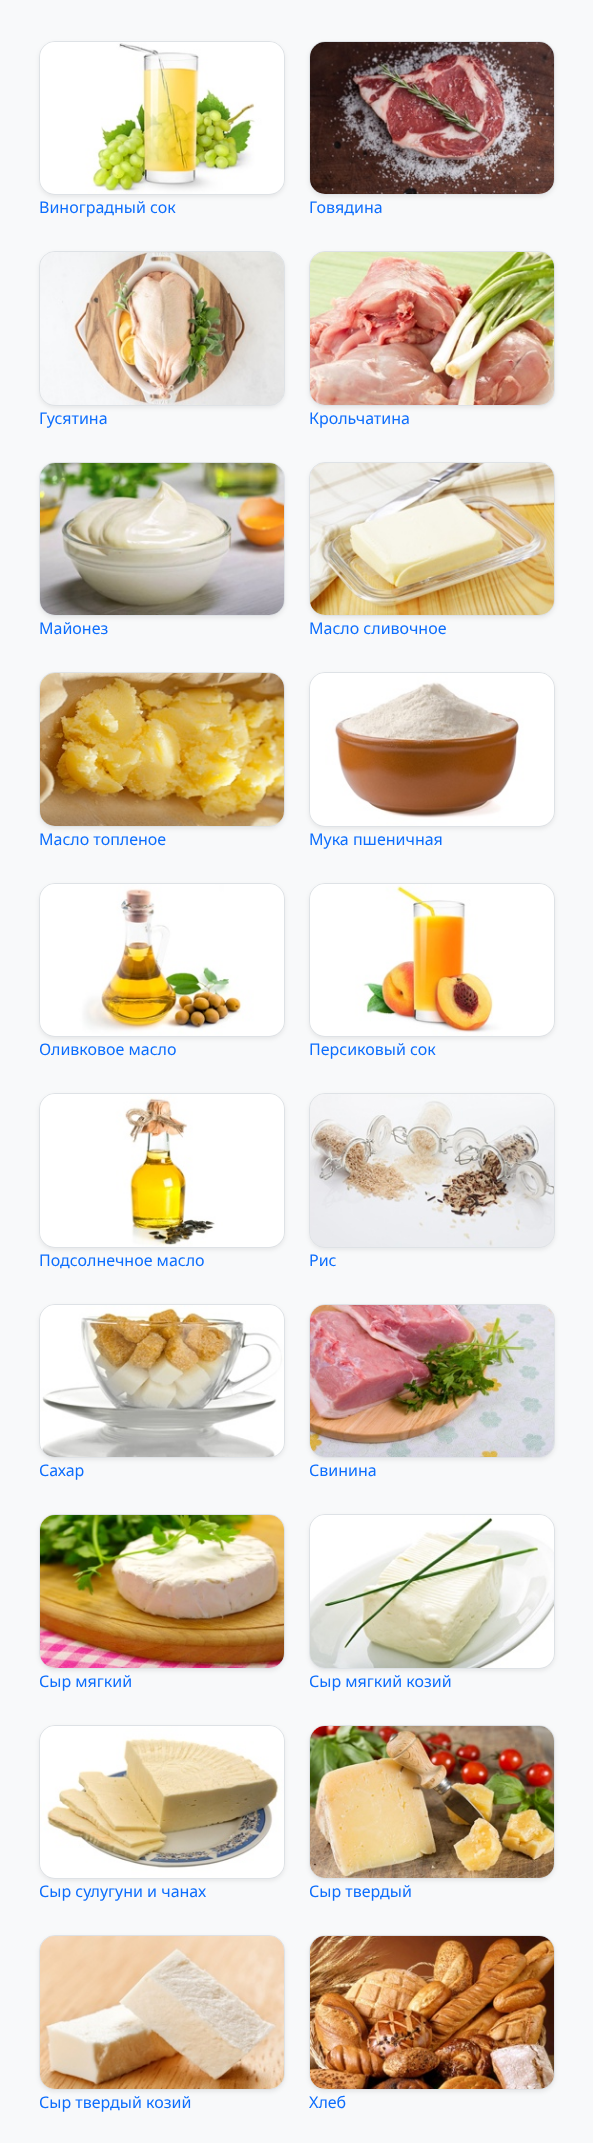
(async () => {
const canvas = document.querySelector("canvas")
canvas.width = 593
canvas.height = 2143
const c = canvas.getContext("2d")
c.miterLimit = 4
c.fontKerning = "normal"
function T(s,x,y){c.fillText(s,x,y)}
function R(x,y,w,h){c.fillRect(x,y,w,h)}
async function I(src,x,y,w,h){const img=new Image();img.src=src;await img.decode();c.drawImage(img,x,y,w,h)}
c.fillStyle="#f8f9fa"
R(0,0,593,2143)
c.fillStyle="#00000012"
c.filter="blur(2px)"
c.beginPath()
c.roundRect(39,43,246,154,16)
c.fill()
c.filter="none"
c.beginPath()
c.roundRect(39.5,41.5,245,153,15.5)
c.strokeStyle="#dee2e6"
c.stroke()
await I("1.png",40,42,244,152)
c.font="16px Noto Sans"
c.fillStyle="#0d6efd"
T("Виноградный сок",39,213)
c.fillStyle="#00000012"
c.filter="blur(2px)"
c.beginPath()
c.roundRect(309,43,246,154,16)
c.fill()
c.filter="none"
c.beginPath()
c.roundRect(309.5,41.5,245,153,15.5)
c.stroke()
await I("2.png",310,42,244,152)
c.fillStyle="#0d6efd"
T("Говядина",309,213)
c.fillStyle="#00000012"
c.filter="blur(2px)"
c.beginPath()
c.roundRect(39,253,246,155,16)
c.fill()
c.filter="none"
c.beginPath()
c.roundRect(39.5,251.5,245,154,15.5)
c.stroke()
await I("3.png",40,252,244,153)
c.fillStyle="#0d6efd"
T("Гусятина",39,424)
c.fillStyle="#00000012"
c.filter="blur(2px)"
c.beginPath()
c.roundRect(309,253,246,155,16)
c.fill()
c.filter="none"
c.beginPath()
c.roundRect(309.5,251.5,245,154,15.5)
c.stroke()
await I("4.png",310,252,244,153)
c.fillStyle="#0d6efd"
T("Крольчатина",309,424)
c.fillStyle="#00000012"
c.filter="blur(2px)"
c.beginPath()
c.roundRect(39,464,246,154,16)
c.fill()
c.filter="none"
c.beginPath()
c.roundRect(39.5,462.5,245,153,15.5)
c.stroke()
await I("5.png",40,463,244,152)
c.fillStyle="#0d6efd"
T("Майонез",39,634)
c.fillStyle="#00000012"
c.filter="blur(2px)"
c.beginPath()
c.roundRect(309,464,246,154,16)
c.fill()
c.filter="none"
c.beginPath()
c.roundRect(309.5,462.5,245,153,15.5)
c.stroke()
await I("6.png",310,463,244,152)
c.fillStyle="#0d6efd"
T("Масло сливочное",309,634)
c.fillStyle="#00000012"
c.filter="blur(2px)"
c.beginPath()
c.roundRect(39,674,246,155,16)
c.fill()
c.filter="none"
c.beginPath()
c.roundRect(39.5,672.5,245,154,15.5)
c.stroke()
await I("7.png",40,673,244,153)
c.fillStyle="#0d6efd"
T("Масло топленое",39,845)
c.fillStyle="#00000012"
c.filter="blur(2px)"
c.beginPath()
c.roundRect(309,674,246,155,16)
c.fill()
c.filter="none"
c.beginPath()
c.roundRect(309.5,672.5,245,154,15.5)
c.stroke()
await I("8.png",310,673,244,153)
c.fillStyle="#0d6efd"
T("Мука пшеничная",309,845)
c.fillStyle="#00000012"
c.filter="blur(2px)"
c.beginPath()
c.roundRect(39,885,246,154,16)
c.fill()
c.filter="none"
c.beginPath()
c.roundRect(39.5,883.5,245,153,15.5)
c.stroke()
await I("9.png",40,884,244,152)
c.fillStyle="#0d6efd"
T("Оливковое масло",39,1055)
c.fillStyle="#00000012"
c.filter="blur(2px)"
c.beginPath()
c.roundRect(309,885,246,154,16)
c.fill()
c.filter="none"
c.beginPath()
c.roundRect(309.5,883.5,245,153,15.5)
c.stroke()
await I("10.png",310,884,244,152)
c.fillStyle="#0d6efd"
T("Персиковый сок",309,1055)
c.fillStyle="#00000012"
c.filter="blur(2px)"
c.beginPath()
c.roundRect(39,1095,246,155,16)
c.fill()
c.filter="none"
c.beginPath()
c.roundRect(39.5,1093.5,245,154,15.5)
c.stroke()
await I("11.png",40,1094,244,153)
c.fillStyle="#0d6efd"
T("Подсолнечное масло",39,1266)
c.fillStyle="#00000012"
c.filter="blur(2px)"
c.beginPath()
c.roundRect(309,1095,246,155,16)
c.fill()
c.filter="none"
c.beginPath()
c.roundRect(309.5,1093.5,245,154,15.5)
c.stroke()
await I("12.png",310,1094,244,153)
c.fillStyle="#0d6efd"
T("Рис",309,1266)
c.fillStyle="#00000012"
c.filter="blur(2px)"
c.beginPath()
c.roundRect(39,1306,246,154,16)
c.fill()
c.filter="none"
c.beginPath()
c.roundRect(39.5,1304.5,245,153,15.5)
c.stroke()
await I("13.png",40,1305,244,152)
c.fillStyle="#0d6efd"
T("Сахар",39,1476)
c.fillStyle="#00000012"
c.filter="blur(2px)"
c.beginPath()
c.roundRect(309,1306,246,154,16)
c.fill()
c.filter="none"
c.beginPath()
c.roundRect(309.5,1304.5,245,153,15.5)
c.stroke()
await I("14.png",310,1305,244,152)
c.fillStyle="#0d6efd"
T("Свинина",309,1476)
c.fillStyle="#00000012"
c.filter="blur(2px)"
c.beginPath()
c.roundRect(39,1516,246,155,16)
c.fill()
c.filter="none"
c.beginPath()
c.roundRect(39.5,1514.5,245,154,15.5)
c.stroke()
await I("15.png",40,1515,244,153)
c.fillStyle="#0d6efd"
T("Сыр мягкий",39,1687)
c.fillStyle="#00000012"
c.filter="blur(2px)"
c.beginPath()
c.roundRect(309,1516,246,155,16)
c.fill()
c.filter="none"
c.beginPath()
c.roundRect(309.5,1514.5,245,154,15.5)
c.stroke()
await I("16.png",310,1515,244,153)
c.fillStyle="#0d6efd"
T("Сыр мягкий козий",309,1687)
c.fillStyle="#00000012"
c.filter="blur(2px)"
c.beginPath()
c.roundRect(39,1727,246,154,16)
c.fill()
c.filter="none"
c.beginPath()
c.roundRect(39.5,1725.5,245,153,15.5)
c.stroke()
await I("17.png",40,1726,244,152)
c.fillStyle="#0d6efd"
T("Сыр сулугуни и чанах",39,1897)
c.fillStyle="#00000012"
c.filter="blur(2px)"
c.beginPath()
c.roundRect(309,1727,246,154,16)
c.fill()
c.filter="none"
c.beginPath()
c.roundRect(309.5,1725.5,245,153,15.5)
c.stroke()
await I("18.png",310,1726,244,152)
c.fillStyle="#0d6efd"
T("Сыр твердый",309,1897)
c.fillStyle="#00000012"
c.filter="blur(2px)"
c.beginPath()
c.roundRect(39,1937,246,155,16)
c.fill()
c.filter="none"
c.beginPath()
c.roundRect(39.5,1935.5,245,154,15.5)
c.stroke()
await I("19.png",40,1936,244,153)
c.fillStyle="#0d6efd"
T("Сыр твердый козий",39,2108)
c.fillStyle="#00000012"
c.filter="blur(2px)"
c.beginPath()
c.roundRect(309,1937,246,155,16)
c.fill()
c.filter="none"
c.beginPath()
c.roundRect(309.5,1935.5,245,154,15.5)
c.stroke()
await I("20.png",310,1936,244,153)
c.fillStyle="#0d6efd"
T("Хлеб",309,2108)
})()
